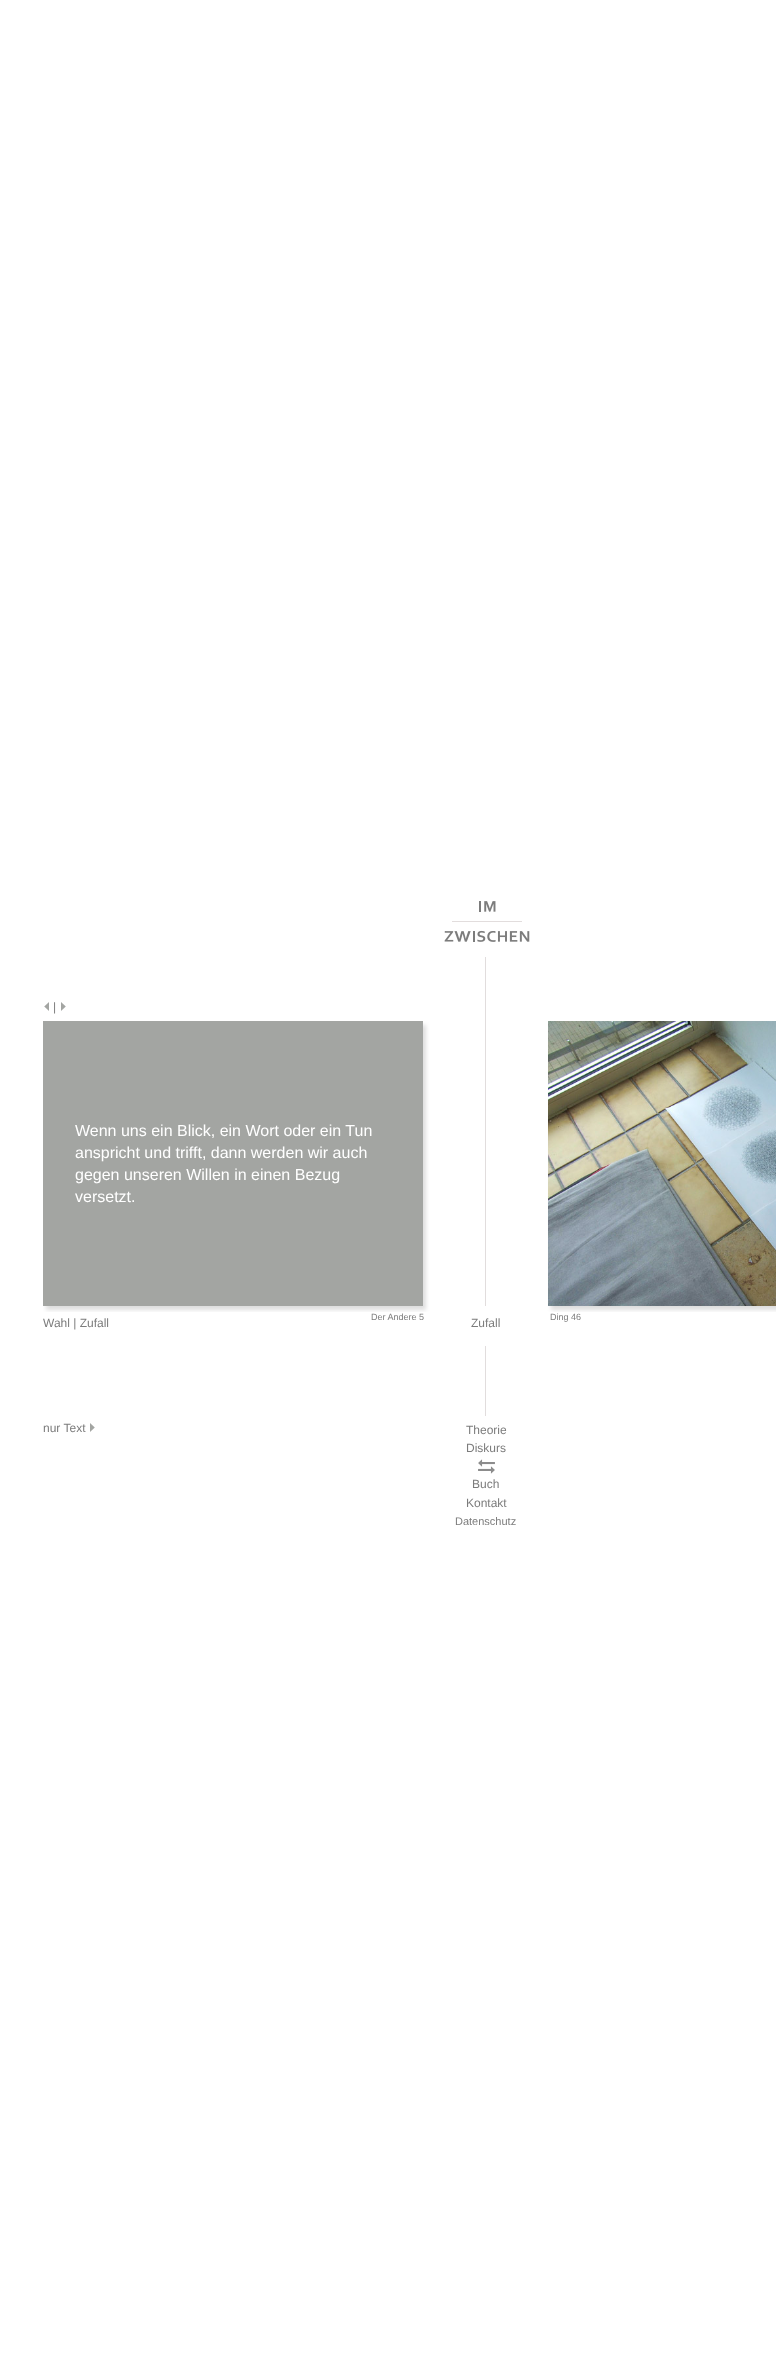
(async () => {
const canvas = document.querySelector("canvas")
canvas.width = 776
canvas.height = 2368
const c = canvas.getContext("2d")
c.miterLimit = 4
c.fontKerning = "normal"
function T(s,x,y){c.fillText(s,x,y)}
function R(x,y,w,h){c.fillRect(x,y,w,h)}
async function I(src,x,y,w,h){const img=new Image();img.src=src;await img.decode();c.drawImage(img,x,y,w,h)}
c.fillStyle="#fff"
R(0,0,776,2368)
await I("1.png",43,1021,733,291)
await I("2.png",444,901,86,41)
await I("3.png",44,1002,5,9)
c.font="12px Liberation Sans"
c.fillStyle="#7c7c7c"
T("|",53,1011)
await I("4.png",61,1002,5,9)
c.fillStyle="#e1dddd"
R(485,957,1,459)
c.font="16px Liberation Sans"
c.fillStyle="#fff"
T("Wenn uns ein Blick, ein Wort oder ein Tun",75,1136)
T("anspricht und trifft, dann werden wir auch",75,1158)
T("gegen unseren Willen in einen Bezug",75,1180)
T("versetzt.",75,1202)
await I("5.png",548,1021,228,285)
c.font="12px Liberation Sans"
c.fillStyle="#7c7c7c"
T("Wahl | Zufall",43,1327)
c.font="9px Liberation Sans"
T("Der Andere 5",371,1320)
c.fillStyle="#fff"
R(485,1306,1,40)
c.font="12px Liberation Sans"
c.fillStyle="#7c7c7c"
T("Zufall",471,1327)
c.font="9px Liberation Sans"
T("Ding 46",550,1320)
c.font="12px Liberation Sans"
T("nur Text",43,1432)
await I("4.png",90,1423,5,9)
T("Theorie",466,1434)
T("Diskurs",466,1452)
await I("6.png",478,1459,17,15)
T("Buch",472,1488)
T("Kontakt",466,1507)
c.font="11px Liberation Sans"
T("Datenschutz",455,1525)
})()
